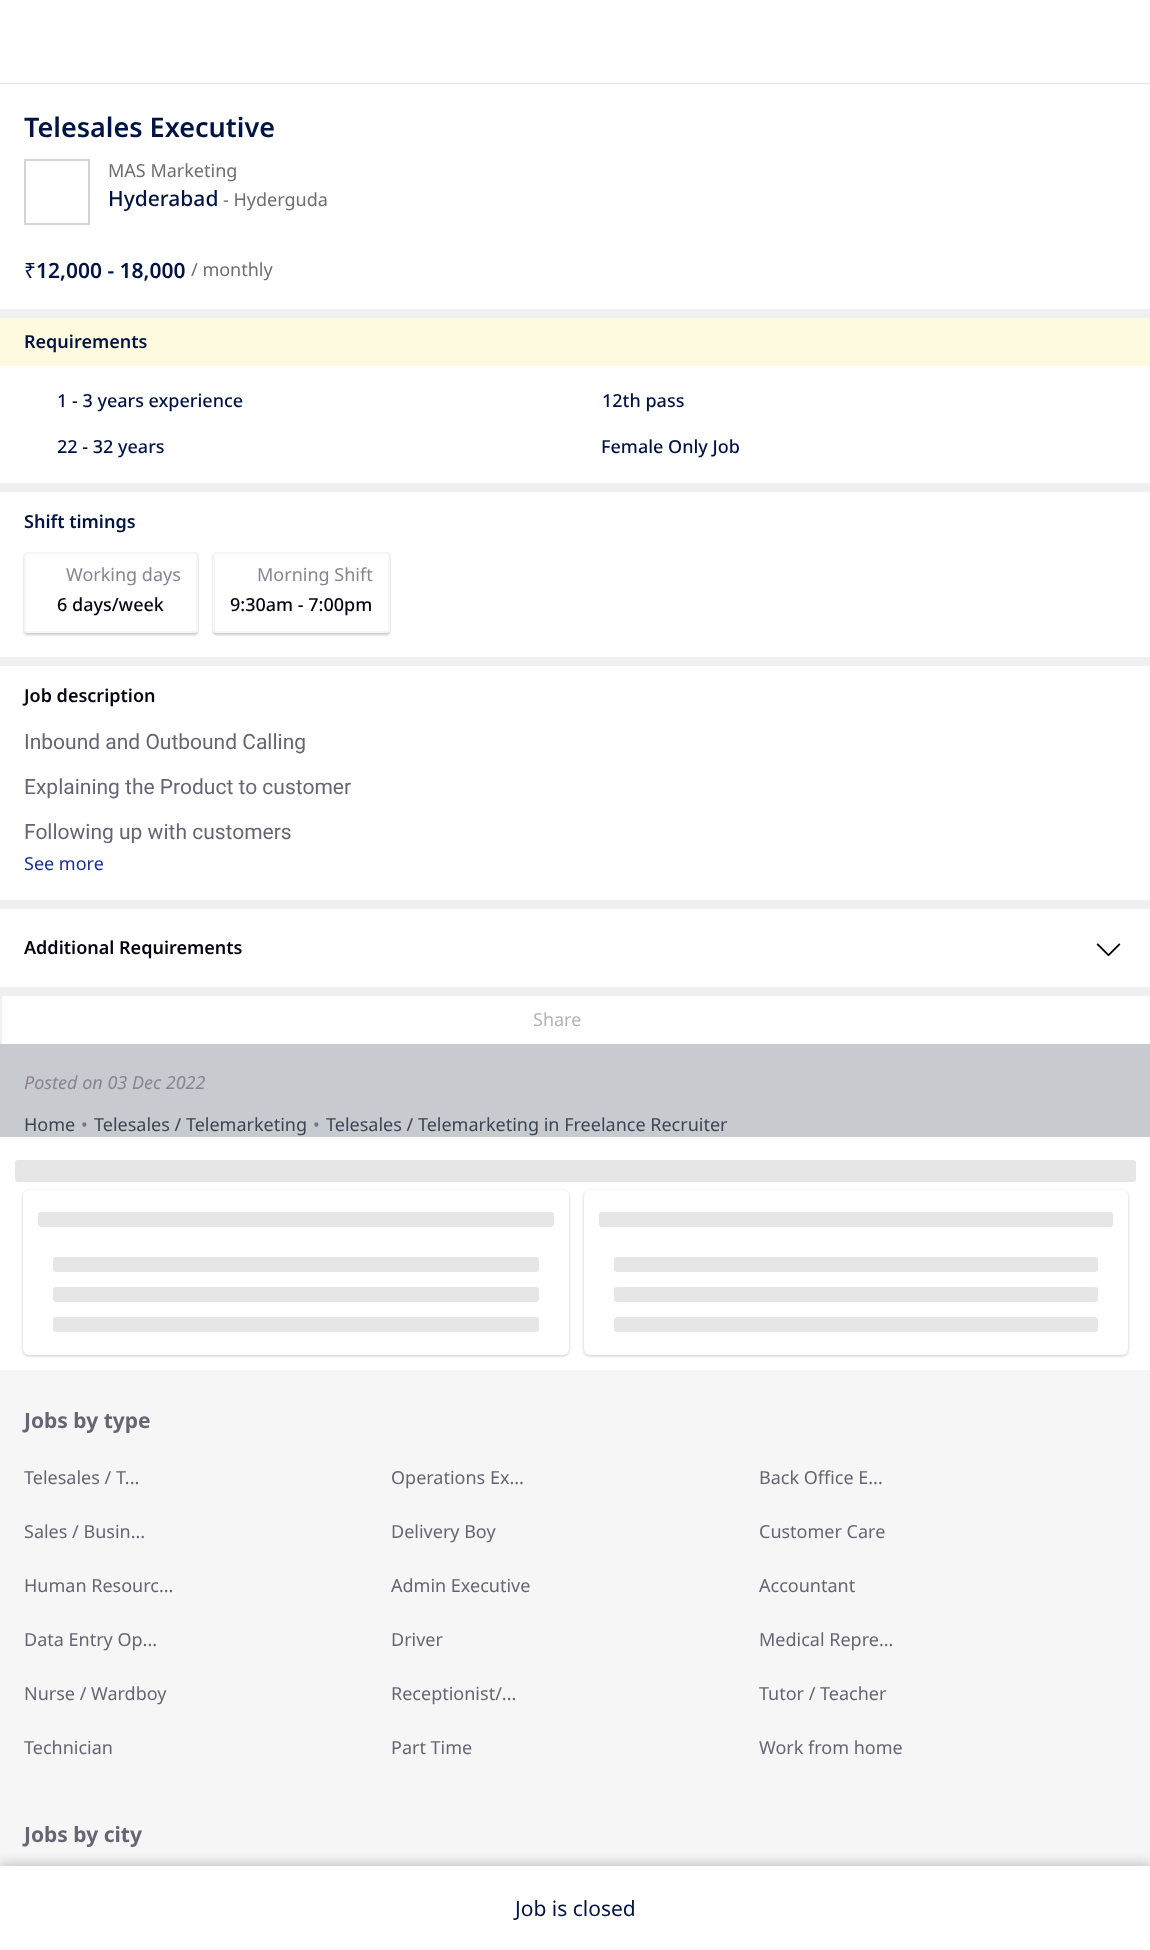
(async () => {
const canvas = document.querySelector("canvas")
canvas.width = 1150
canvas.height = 1950
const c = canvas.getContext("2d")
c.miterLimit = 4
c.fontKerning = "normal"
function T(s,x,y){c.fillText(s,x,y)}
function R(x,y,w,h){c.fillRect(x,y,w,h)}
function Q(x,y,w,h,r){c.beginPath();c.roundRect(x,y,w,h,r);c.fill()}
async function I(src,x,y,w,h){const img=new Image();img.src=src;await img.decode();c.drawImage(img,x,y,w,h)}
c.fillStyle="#fff"
R(0,0,1150,1950)
c.fillStyle="#e3e4e7"
R(0,83,1150,1)
c.fillStyle="#f0f0f0"
R(0,309,1150,687)
c.font="600 27px Noto Sans"
c.fillStyle="#001443"
T("Telesales Executive",24,137)
c.strokeStyle="#d4d3d8"
c.lineWidth=2
c.strokeRect(25,160,64,64)
c.font="18px Noto Sans"
c.fillStyle="#6e6e6e"
T("MAS Marketing",108,177)
c.font="500 21px Noto Sans"
c.fillStyle="#001443"
T("Hyderabad",108,206)
c.font="18px Noto Sans"
c.fillStyle="#6e6e6e"
T("- Hyderguda",223,206)
c.font="21px Noto Sans"
c.fillStyle="#001443"
T("₹",24,278)
c.font="600 21px Noto Sans"
T("12,000 - 18,000",36,278)
c.font="18px Noto Sans"
c.fillStyle="#6e6e6e"
T("/ monthly",191,276)
c.fillStyle="#fff"
R(0,366,1150,117)
c.fillStyle="#fefae0"
R(0,318,1150,48)
c.font="600 18px Noto Sans"
c.fillStyle="#001443"
T("Requirements",24,348)
c.font="500 18px Noto Sans"
T("1 - 3 years experience",57,407)
T("12th pass",602,407)
T("22 - 32 years",57,453)
T("Female Only Job",601,453)
c.fillStyle="#fff"
R(0,492,1150,165)
c.font="600 18px Noto Sans"
c.fillStyle="#001443"
T("Shift timings",24,528)
c.fillStyle="#00000033"
c.filter="blur(1px)"
c.beginPath()
c.roundRect(24,554,174,81,3)
c.fill()
c.filter="none"
c.fillStyle="#fff"
c.beginPath()
c.roundRect(25,553,172,79,2)
c.fill()
c.strokeStyle="#f6f6f6"
c.stroke()
c.font="18px Noto Sans"
c.fillStyle="#868594"
T("Working days",66,581)
c.font="500 18px Noto Sans"
c.fillStyle="#060211"
T("6 days/week",57,611)
c.fillStyle="#00000033"
c.filter="blur(1px)"
c.beginPath()
c.roundRect(213,554,177,81,3)
c.fill()
c.filter="none"
c.fillStyle="#fff"
c.beginPath()
c.roundRect(214,553,175,79,2)
c.fill()
c.stroke()
c.font="18px Noto Sans"
c.fillStyle="#868594"
T("Morning Shift",257,581)
c.font="500 18px Noto Sans"
c.fillStyle="#060211"
T("9:30am - 7:00pm",230,611)
c.fillStyle="#fff"
R(0,666,1150,234)
c.font="600 18px Noto Sans"
c.fillStyle="#060211"
T("Job description",24,702)
c.font="21px Roboto"
c.fillStyle="#676574"
T("Inbound and Outbound Calling",24,749)
T("Explaining the Product to customer",24,794)
c.save()
c.beginPath()
c.rect(24,708,1103,135)
c.clip()
T("Following up with customers",24,839)
c.restore()
c.font="18px Noto Sans"
c.fillStyle="#1b2d93"
T("See more",24,870)
c.fillStyle="#fff"
R(0,909,1150,78)
c.font="600 18px Noto Sans"
c.fillStyle="#060211"
T("Additional Requirements",24,954)
await I("1.png",1096,943,25,14)
c.fillStyle="#f0f0f0"
R(0,996,2,48)
c.font="18px Noto Sans"
c.fillStyle="#b3b2ba"
T("Share",533,1026)
c.fillStyle="#c7cace"
R(0,1044,1150,93)
c.font="italic 18px Noto Sans"
c.fillStyle="#868594"
T("Posted on 03 Dec 2022",24,1089)
c.font="18px Noto Sans"
c.fillStyle="#3d4455"
T("Home",24,1131)
c.fillStyle="#747a85"
T("•",81,1131)
c.fillStyle="#3d4455"
T("Telesales / Telemarketing",94,1131)
c.fillStyle="#747a85"
T("•",313,1131)
c.fillStyle="#3d4455"
T("Telesales / Telemarketing in Freelance Recruiter",326,1131)
c.fillStyle="#e6e6e6"
Q(15,1160,1121,22,3)
c.fillStyle="#00000038"
c.filter="blur(1.5px)"
c.beginPath()
c.roundRect(23,1191,546,165,6)
c.fill()
c.filter="none"
c.fillStyle="#fff"
Q(23,1190,546,165,6)
c.fillStyle="#e6e6e6"
Q(38,1212,516,15,3)
Q(53,1257,486,15,3)
Q(53,1287,486,15,3)
Q(53,1317,486,15,3)
c.fillStyle="#00000038"
c.filter="blur(1.5px)"
c.beginPath()
c.roundRect(584,1191,544,165,6)
c.fill()
c.filter="none"
c.fillStyle="#fff"
Q(584,1190,544,165,6)
c.fillStyle="#e6e6e6"
Q(599,1212,514,15,3)
Q(614,1257,484,15,3)
Q(614,1287,484,15,3)
Q(614,1317,484,15,3)
c.fillStyle="#f6f6f6"
R(0,1370,1150,496)
c.font="bold 21px Noto Sans"
c.fillStyle="#676574"
T("Jobs by type",24,1428)
c.font="18px Noto Sans"
T("Telesales / T...",24,1484)
T("Operations Ex...",391,1484)
T("Back Office E...",759,1484)
T("Sales / Busin...",24,1538)
T("Delivery Boy",391,1538)
T("Customer Care",759,1538)
T("Human Resourc...",24,1592)
T("Admin Executive",391,1592)
T("Accountant",759,1592)
T("Data Entry Op...",24,1646)
T("Driver",391,1646)
T("Medical Repre...",759,1646)
T("Nurse / Wardboy",24,1700)
T("Receptionist/...",391,1700)
T("Tutor / Teacher",759,1700)
T("Technician",24,1754)
T("Part Time",391,1754)
T("Work from home",759,1754)
c.font="bold 21px Noto Sans"
T("Jobs by city",24,1842)
c.fillStyle="#00000033"
c.filter="blur(6px)"
c.beginPath()
c.rect(0,1863,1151,84)
c.fill()
c.filter="none"
c.fillStyle="#fff"
R(0,1866,1150,84)
c.font="21px Noto Sans"
c.fillStyle="#001443"
T("Job is closed",515,1916)
})()
